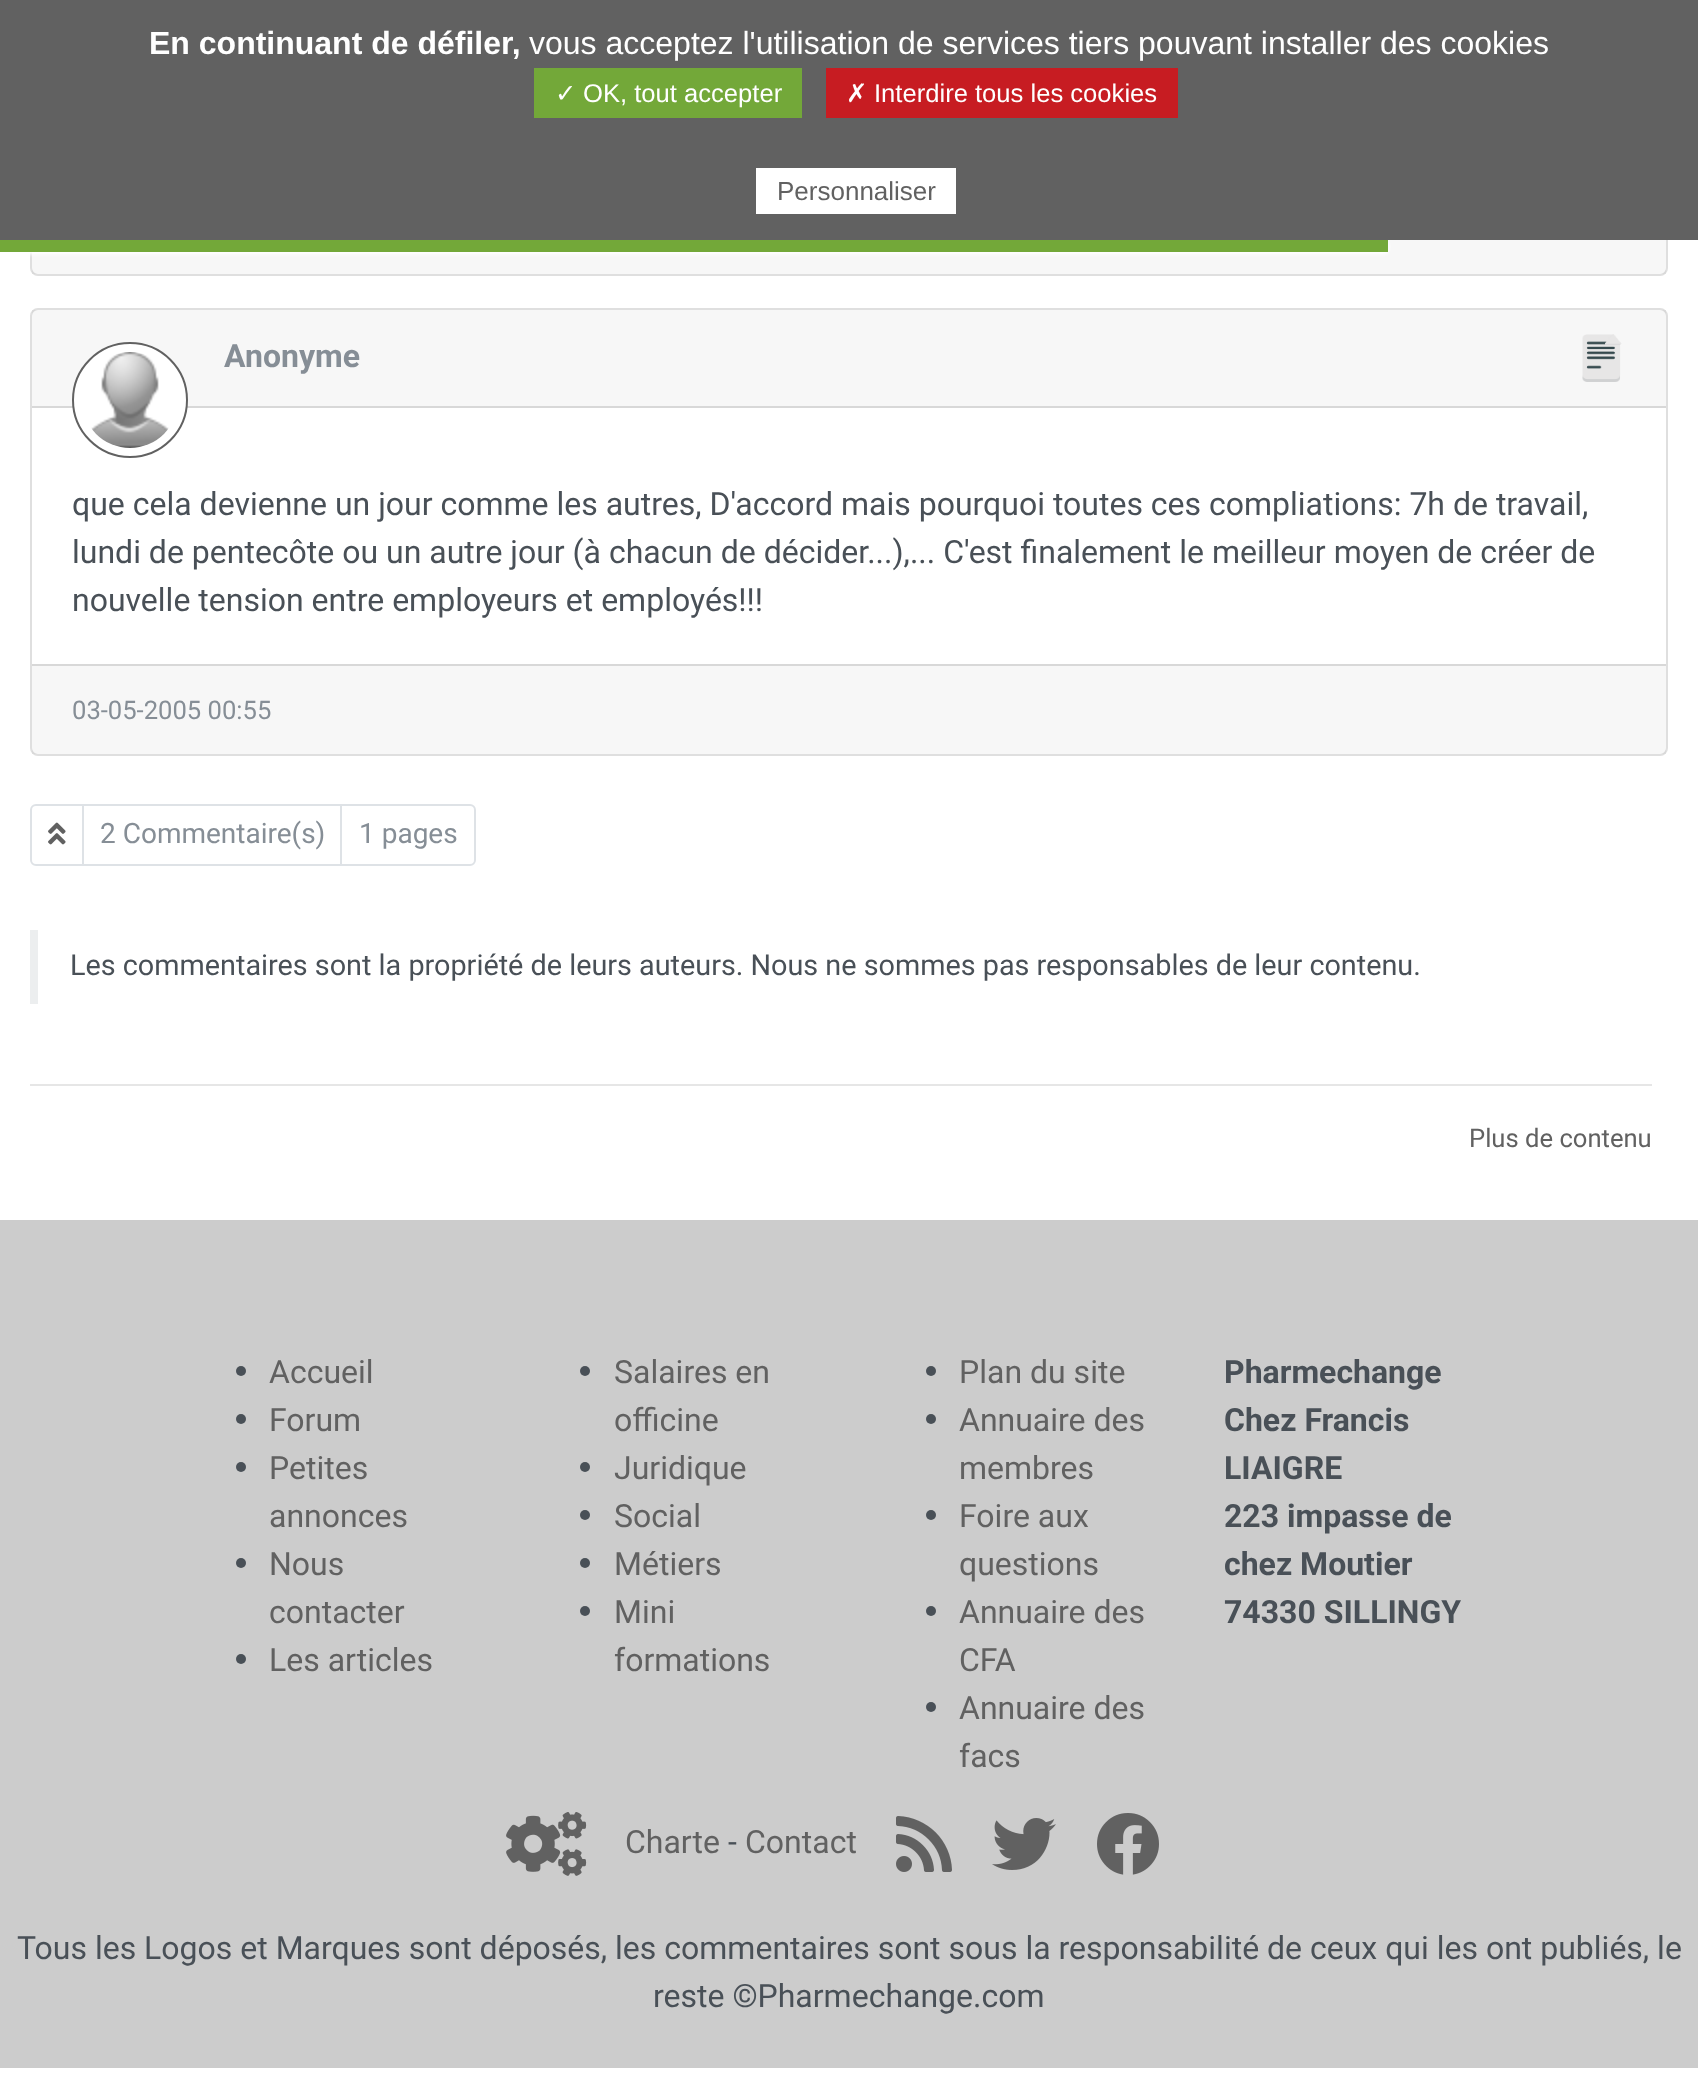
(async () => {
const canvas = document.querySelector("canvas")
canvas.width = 1698
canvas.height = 2100
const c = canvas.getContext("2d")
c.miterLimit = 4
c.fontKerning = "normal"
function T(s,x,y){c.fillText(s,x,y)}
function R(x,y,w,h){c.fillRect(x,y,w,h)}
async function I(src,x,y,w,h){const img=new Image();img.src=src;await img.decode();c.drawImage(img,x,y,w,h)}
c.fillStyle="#fff"
R(0,0,1698,2100)
c.beginPath()
c.roundRect(31,-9,1636,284,7)
c.strokeStyle="#dfdfdf"
c.lineWidth=2
c.stroke()
c.fillStyle="#00000008"
R(32,240,1634,34)
c.fillStyle="#fff"
c.filter="blur(2px)"
c.beginPath()
c.rect(0,242,1388,12)
c.fill()
c.filter="none"
c.filter="blur(2px)"
c.beginPath()
c.rect(0,240,1388,12)
c.fill()
c.filter="none"
c.fillStyle="#616161"
R(0,0,1698,240)
c.font="bold 32px Liberation Sans"
c.fillStyle="#fff"
T("En continuant de défiler,",149,54)
c.font="32px Liberation Sans"
T("vous acceptez l'utilisation de services tiers pouvant installer des cookies",529,54)
c.fillStyle="#73a839"
R(534,68,268,50)
c.font="25.6px DejaVu Sans"
c.fillStyle="#fff"
T("✓",555,102)
c.font="25.6px Liberation Sans"
T("OK, tout accepter",583,102)
c.fillStyle="#c71c22"
R(826,68,352,50)
c.font="25.6px DejaVu Sans"
c.fillStyle="#fff"
T("✗",846,102)
c.font="25.6px Liberation Sans"
T("Interdire tous les cookies",874,102)
R(756,168,200,46)
c.font="26px Liberation Sans"
c.fillStyle="#616161"
T("Personnaliser",777,200)
c.fillStyle="#73a839"
R(0,240,1388,12)
c.beginPath()
c.roundRect(31,309,1636,446,7)
c.stroke()
c.fillStyle="#00000008"
R(32,310,1634,96)
c.fillStyle="#d8d8d8"
R(32,406,1634,2)
c.fillStyle="#fff"
c.beginPath()
c.arc(130,400,57,0,7)
c.fill()
c.strokeStyle="#616161"
c.stroke()
await I("1.png",91,352,78,96)
c.font="bold 32px Roboto"
c.fillStyle="#868e96"
T("Anonyme",224,367)
await I("2.png",1582,334,40,48)
c.font="32px Roboto"
c.fillStyle="#495057"
T("que cela devienne un jour comme les autres, D'accord mais pourquoi toutes ces compliations: 7h de travail,",72,515)
T("lundi de pentecôte ou un autre jour (à chacun de décider...),... C'est finalement le meilleur moyen de créer de",72,563)
T("nouvelle tension entre employeurs et employés!!!",72,611)
c.fillStyle="#00000008"
R(32,666,1634,88)
c.fillStyle="#d8d8d8"
R(32,664,1634,2)
c.font="25.6px Roboto"
c.fillStyle="#868e96"
T("03-05-2005 00:55",72,719)
c.beginPath()
c.roundRect(31,805,52,60,[5,0,0,5])
c.strokeStyle="#dee2e6"
c.stroke()
await I("3.png",48,822,18,23)
c.strokeRect(83,805,258,60)
c.font="28px Roboto"
T("2 Commentaire(s)",100,843)
c.fillStyle="#fff"
c.beginPath()
c.roundRect(341,805,134,60,[0,5,5,0])
c.fill()
c.stroke()
c.fillStyle="#868e96"
T("1 pages",359,843)
c.fillStyle="#eceeef"
R(30,930,8,74)
c.font="28.8px Roboto"
c.fillStyle="#495057"
T("Les commentaires sont la propriété de leurs auteurs. Nous ne sommes pas responsables de leur contenu.",70,975)
c.fillStyle="#e6e6e6"
R(30,1084,1622,2)
c.font="25.6px Roboto"
c.fillStyle="#616161"
T("Plus de contenu",1469,1147)
c.fillStyle="#ccc"
R(0,1220,1698,848)
c.fillStyle="#495057"
c.beginPath()
c.arc(241,1371,5,0,7)
c.fill()
c.font="32px Roboto"
c.fillStyle="#616161"
T("Accueil",269,1383)
c.fillStyle="#495057"
c.beginPath()
c.arc(241,1419,5,0,7)
c.fill()
c.fillStyle="#616161"
T("Forum",269,1431)
c.fillStyle="#495057"
c.beginPath()
c.arc(241,1467,5,0,7)
c.fill()
c.fillStyle="#616161"
T("Petites",269,1479)
T("annonces",269,1527)
c.fillStyle="#495057"
c.beginPath()
c.arc(241,1563,5,0,7)
c.fill()
c.fillStyle="#616161"
T("Nous",269,1575)
T("contacter",269,1623)
c.fillStyle="#495057"
c.beginPath()
c.arc(241,1659,5,0,7)
c.fill()
c.fillStyle="#616161"
T("Les articles",269,1671)
c.fillStyle="#495057"
c.beginPath()
c.arc(585,1371,5,0,7)
c.fill()
c.fillStyle="#616161"
T("Salaires en",614,1383)
T("officine",614,1431)
c.fillStyle="#495057"
c.beginPath()
c.arc(585,1467,5,0,7)
c.fill()
c.fillStyle="#616161"
T("Juridique",614,1479)
c.fillStyle="#495057"
c.beginPath()
c.arc(585,1515,5,0,7)
c.fill()
c.fillStyle="#616161"
T("Social",614,1527)
c.fillStyle="#495057"
c.beginPath()
c.arc(585,1563,5,0,7)
c.fill()
c.fillStyle="#616161"
T("Métiers",614,1575)
c.fillStyle="#495057"
c.beginPath()
c.arc(585,1611,5,0,7)
c.fill()
c.fillStyle="#616161"
T("Mini",614,1623)
T("formations",614,1671)
c.fillStyle="#495057"
c.beginPath()
c.arc(931,1371,5,0,7)
c.fill()
c.fillStyle="#616161"
T("Plan du site",959,1383)
c.fillStyle="#495057"
c.beginPath()
c.arc(931,1419,5,0,7)
c.fill()
c.fillStyle="#616161"
T("Annuaire des",959,1431)
T("membres",959,1479)
c.fillStyle="#495057"
c.beginPath()
c.arc(931,1515,5,0,7)
c.fill()
c.fillStyle="#616161"
T("Foire aux",959,1527)
T("questions",959,1575)
c.fillStyle="#495057"
c.beginPath()
c.arc(931,1611,5,0,7)
c.fill()
c.fillStyle="#616161"
T("Annuaire des",959,1623)
T("CFA",959,1671)
c.fillStyle="#495057"
c.beginPath()
c.arc(931,1707,5,0,7)
c.fill()
c.fillStyle="#616161"
T("Annuaire des",959,1719)
T("facs",959,1767)
c.font="bold 32px Roboto"
c.fillStyle="#495057"
T("Pharmechange",1224,1383)
T("Chez Francis",1224,1431)
T("LIAIGRE",1224,1479)
T("223 impasse de",1224,1527)
T("chez Moutier",1224,1575)
T("74330 SILLINGY",1224,1623)
await I("4.png",506,1812,81,64)
c.font="32px Roboto"
c.fillStyle="#616161"
T("Charte",625,1853)
c.fillStyle="#495057"
T("-",728,1853)
c.fillStyle="#616161"
T("Contact",745,1853)
await I("5.png",896,1816,56,56)
await I("6.png",992,1818,64,52)
await I("7.png",1097,1813,62,62)
c.fillStyle="#495057"
T("Tous les Logos et Marques sont déposés, les commentaires sont sous la responsabilité de ceux qui les ont publiés, le",17,1959)
T("reste ©Pharmechange.com",653,2007)
})()
